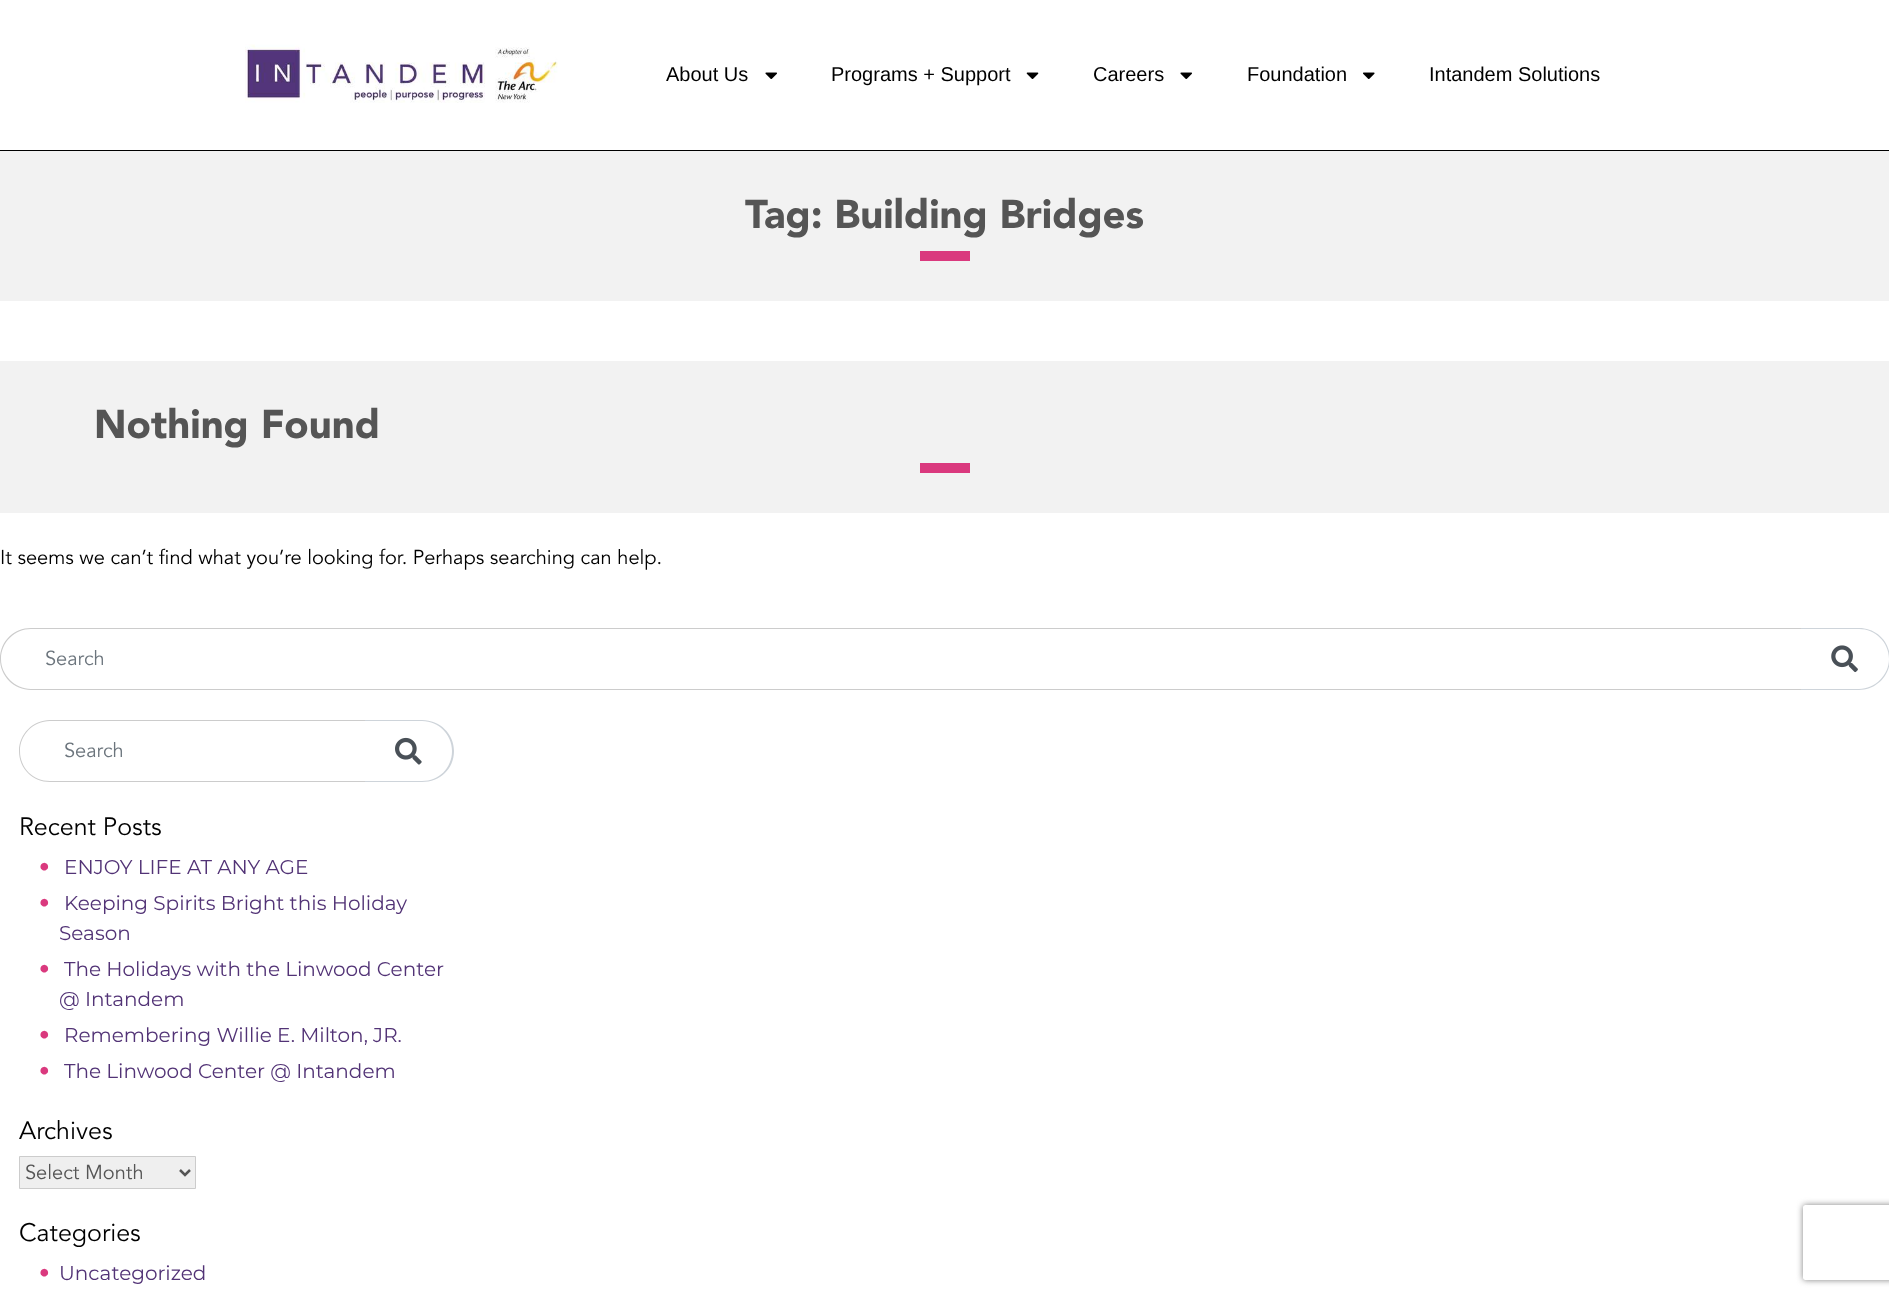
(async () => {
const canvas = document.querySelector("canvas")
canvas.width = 1889
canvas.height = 1297
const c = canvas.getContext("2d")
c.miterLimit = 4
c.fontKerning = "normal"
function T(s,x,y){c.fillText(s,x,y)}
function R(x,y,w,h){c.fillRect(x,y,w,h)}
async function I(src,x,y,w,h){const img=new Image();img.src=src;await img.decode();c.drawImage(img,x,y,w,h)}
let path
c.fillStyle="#fff"
R(0,0,1889,1297)
c.fillStyle="#000"
R(0,150,1889,1)
await I("1.png",245,44,313,59)
c.font="20px Liberation Sans"
T("About Us",666,81)
await I("2.png",765,72,12,7)
T("Programs + Support",831,81)
await I("3.png",1026,72,13,7)
T("Careers",1093,81)
await I("2.png",1180,72,12,7)
T("Foundation",1247,81)
await I("4.png",1363,72,12,7)
T("Intandem Solutions",1429,81)
c.fillStyle="#f2f2f2"
R(0,151,1889,150)
c.font="900 40px Avenir"
c.fillStyle="#555"
T("Tag: Building Bridges",745,228)
c.fillStyle="#da397e"
R(920,251,50,10)
c.fillStyle="#f2f2f2"
R(0,361,1889,152)
c.fillStyle="#555"
T("Nothing Found",94,438)
c.fillStyle="#da397e"
R(920,463,50,10)
c.font="20px Avenir"
c.fillStyle="#000"
T("It seems we can’t find what you’re looking for. Perhaps searching can help.",0,564)
c.fillStyle="#ced4da"
path = new Path2D("M1800 628h59c17 0 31 13 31 31c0 17-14 31-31 31h-59zm0 1h59c16 0 30 13 30 30c0 16-14 30-30 30h-59z")
c.fill(path,"evenodd")
c.fillStyle="#ccc"
path = new Path2D("M31 628h1770v62h-1770c-17 0-31-14-31-31c0-18 14-31 31-31zm0 1h1770v60h-1770c-16 0-30-14-30-30c0-17 14-30 30-30z")
c.fill(path,"evenodd")
c.fillStyle="#6c757d"
T("Search",45,665)
await I("5.png",1831,645,27,28)
c.fillStyle="#ced4da"
path = new Path2D("M364 720h58c18 0 32 14 32 31c0 18-14 31-32 31h-58zm0 1h58c17 0 30 14 30 30c0 17-13 30-30 30h-58z")
c.fill(path,"evenodd")
c.fillStyle="#ccc"
path = new Path2D("M50 720h315v62h-315c-17 0-31-13-31-31c0-17 14-31 31-31zm0 1h315v60h-315c-17 0-30-13-30-30c0-16 13-30 30-30z")
c.fill(path,"evenodd")
c.fillStyle="#6c757d"
T("Search",64,757)
await I("6.png",395,737,27,28)
c.font="25px Avenir"
c.fillStyle="#000"
T("Recent Posts",19,835)
c.font="bold 20px Avenir"
c.fillStyle="#da397e"
T("•",39,874)
c.font="20px Montserrat"
c.fillStyle="#523376"
T("ENJOY LIFE AT ANY AGE",64,874)
c.font="bold 20px Avenir"
c.fillStyle="#da397e"
T("•",39,910)
c.font="20px Montserrat"
c.fillStyle="#523376"
T("Keeping Spirits Bright this Holiday",64,910)
T("Season",59,940)
c.font="bold 20px Avenir"
c.fillStyle="#da397e"
T("•",39,976)
c.font="20px Montserrat"
c.fillStyle="#523376"
T("The Holidays with the Linwood Center",64,976)
T("@ Intandem",59,1006)
c.font="bold 20px Avenir"
c.fillStyle="#da397e"
T("•",39,1042)
c.font="20px Montserrat"
c.fillStyle="#523376"
T("Remembering Willie E. Milton, JR.",64,1042)
c.font="bold 20px Avenir"
c.fillStyle="#da397e"
T("•",39,1078)
c.font="20px Montserrat"
c.fillStyle="#523376"
T("The Linwood Center @ Intandem",64,1078)
c.font="25px Avenir"
c.fillStyle="#000"
T("Archives",19,1139)
c.fillStyle="#efefef"
c.beginPath()
c.rect(19.5,1156.5,176,32)
c.fill()
c.strokeStyle="#ccc"
c.stroke()
path = new Path2D("M180 1170l5 5l5-5")
c.strokeStyle="#555"
c.lineWidth=2.5
c.stroke(path)
c.font="20px Avenir"
c.fillStyle="#555"
T("Select Month",25,1179)
c.font="25px Avenir"
c.fillStyle="#000"
T("Categories",19,1241)
c.font="bold 20px Avenir"
c.fillStyle="#da397e"
T("•",39,1280)
c.font="20px Montserrat"
c.fillStyle="#523376"
T("Uncategorized",59,1280)
c.save()
path = new Path2D("M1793 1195h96v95h-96zm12.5 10h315c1.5 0 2.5 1 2.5 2.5v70c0 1.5-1 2.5-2.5 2.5h-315c-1.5 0-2.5-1-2.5-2.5v-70c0-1.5 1-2.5 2.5-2.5z")
c.clip(path,"evenodd")
c.fillStyle="#808080"
c.filter="blur(3px)"
c.beginPath()
c.roundRect(1803,1205,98,75,2.5)
c.fill()
c.filter="none"
c.restore()
})()
